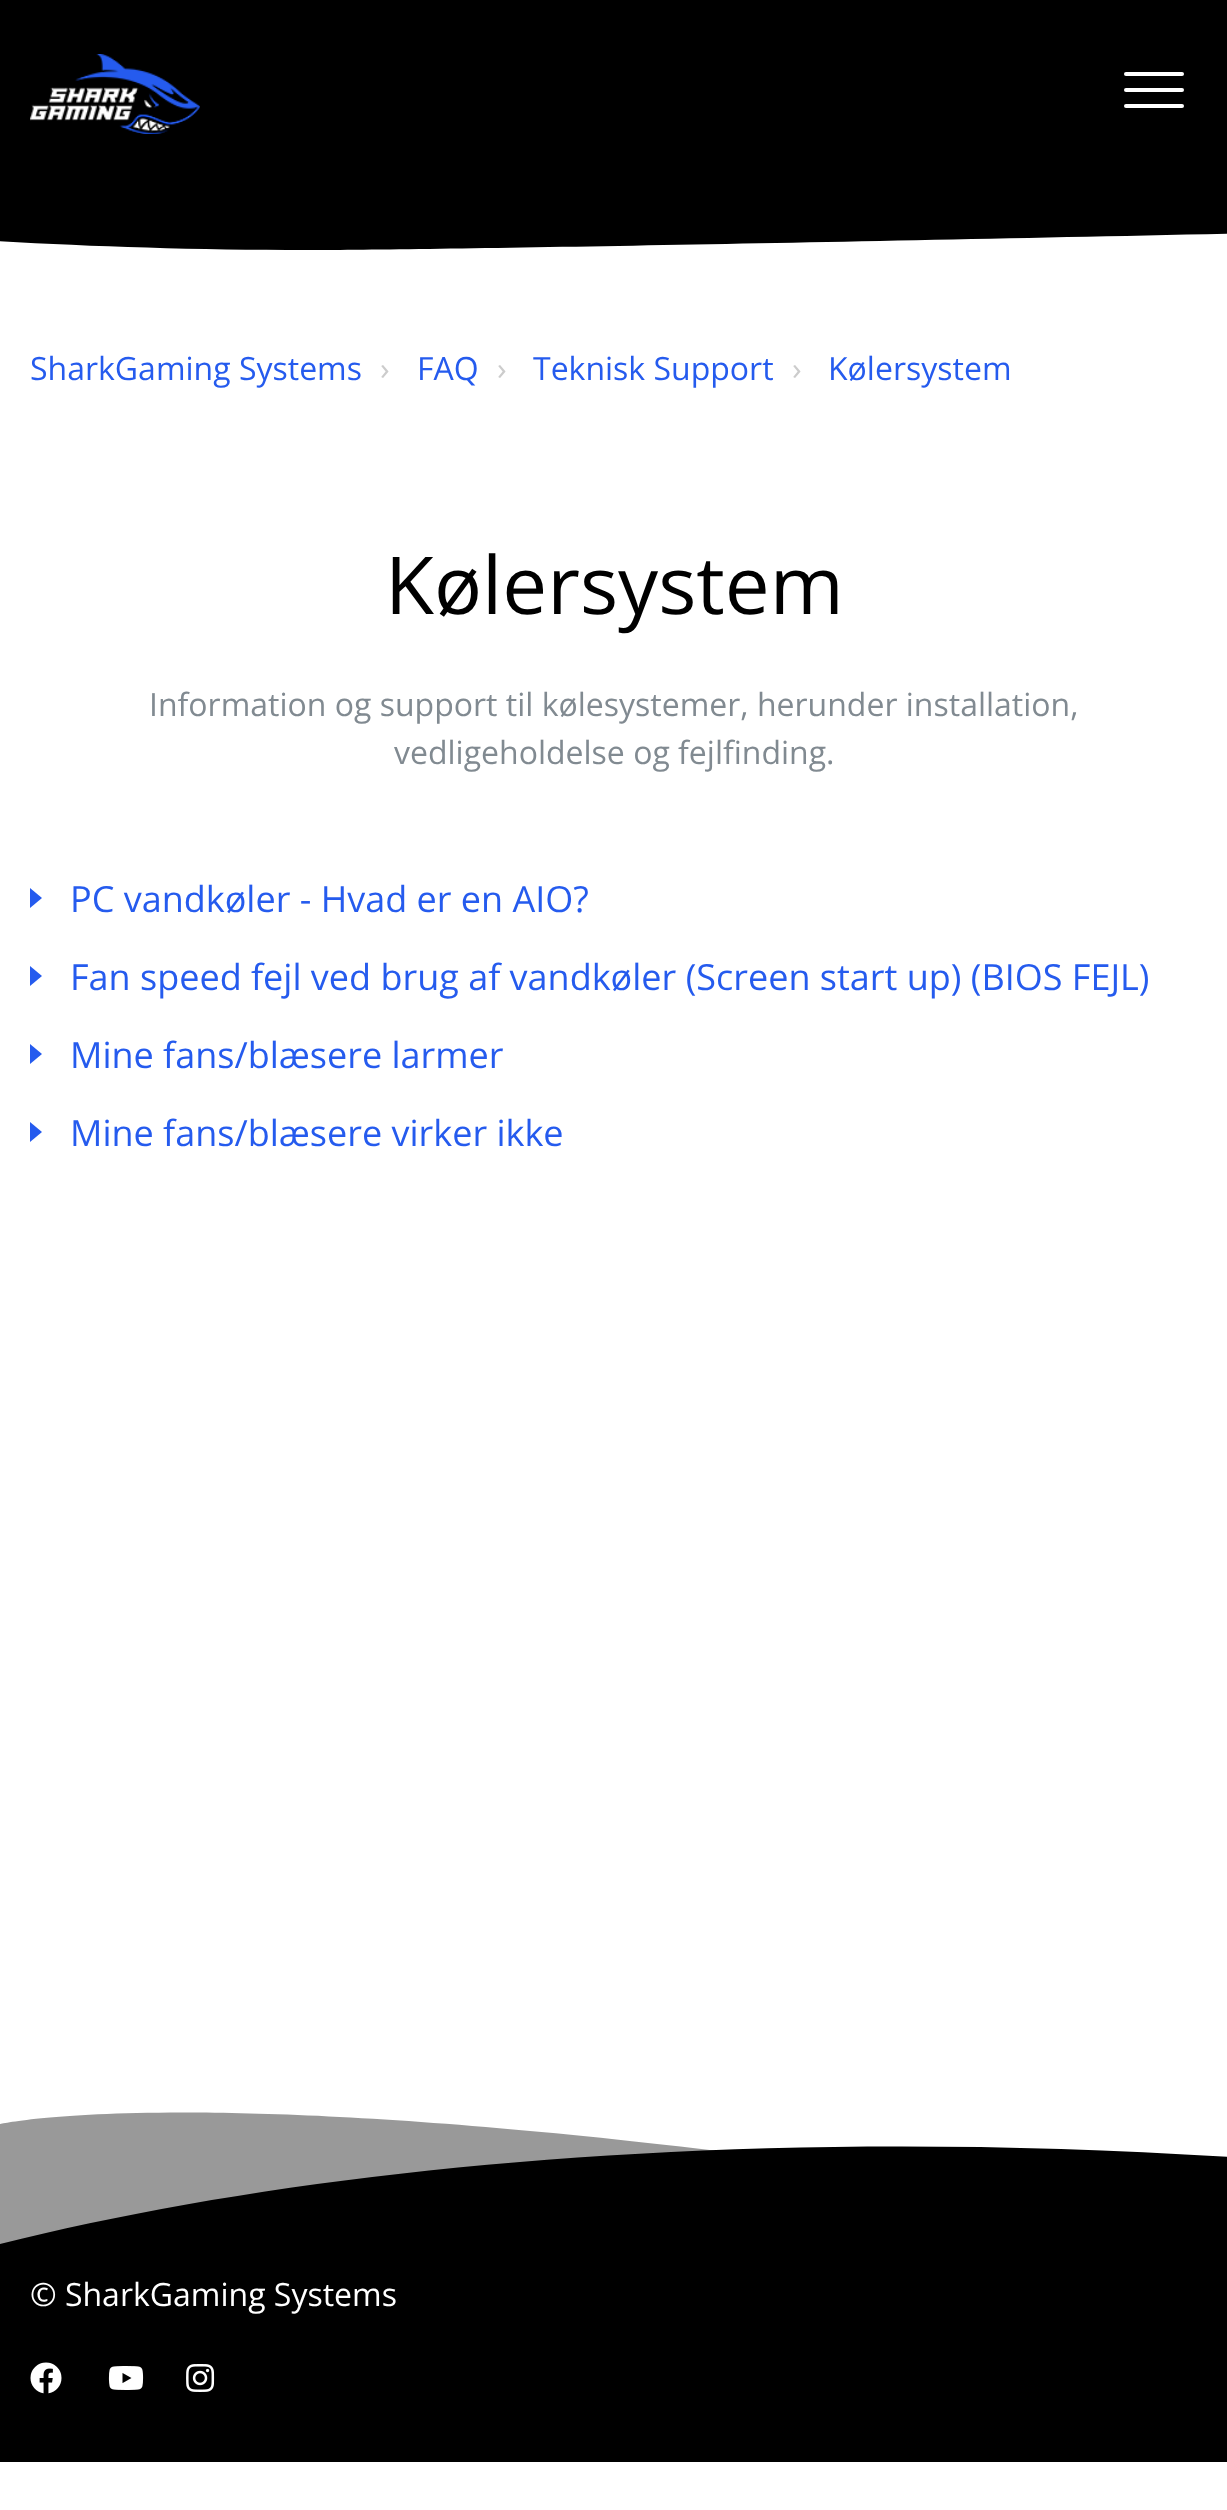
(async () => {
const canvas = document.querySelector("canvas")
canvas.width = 1227
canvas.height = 2510
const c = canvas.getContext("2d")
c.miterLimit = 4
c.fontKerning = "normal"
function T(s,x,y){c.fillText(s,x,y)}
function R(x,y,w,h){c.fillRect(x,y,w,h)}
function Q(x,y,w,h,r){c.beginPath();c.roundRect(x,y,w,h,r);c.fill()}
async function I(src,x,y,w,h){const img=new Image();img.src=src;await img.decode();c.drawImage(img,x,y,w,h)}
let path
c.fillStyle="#fff"
R(0,0,1227,2510)
c.fillStyle="#000"
R(0,0,1227,186)
await I("1.png",30,54,170,80)
c.fillStyle="#fff"
Q(1124,88,60,4,2)
Q(1124,72,60,4,2)
Q(1124,104,60,4,2)
c.fillStyle="#000"
path = new Path2D("M308 250c358 0 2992-64 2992-64h-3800c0 0 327 64 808 64z")
c.fill(path)
c.font="32px Open Sans"
c.fillStyle="#255bee"
T("SharkGaming Systems",30,380)
c.fillStyle="#ccc"
T("›",380,380)
c.fillStyle="#255bee"
T("FAQ",417,380)
c.fillStyle="#ccc"
T("›",497,380)
c.fillStyle="#255bee"
T("Teknisk Support",533,380)
c.fillStyle="#ccc"
T("›",792,380)
c.fillStyle="#255bee"
T("Kølersystem",828,380)
c.font="80px Open Sans"
c.fillStyle="#000"
T("Kølersystem",385,614)
c.font="32px Open Sans"
c.fillStyle="#818a91"
T("Information og support til kølesystemer, herunder installation,",149,716)
T("vedligeholdelse og fejlfinding.",394,764)
c.fillStyle="#255bee"
path = new Path2D("M30 908v-20l12 10z")
c.fill(path)
c.font="36px Open Sans"
T("PC vandkøler - Hvad er en AIO?",70,912)
path = new Path2D("M30 986v-20l12 10z")
c.fill(path)
T("Fan speed fejl ved brug af vandkøler (Screen start up) (BIOS FEJL)",70,990)
path = new Path2D("M30 1064v-20l12 10z")
c.fill(path)
T("Mine fans/blæsere larmer",70,1068)
path = new Path2D("M30 1142v-20l12 10z")
c.fill(path)
T("Mine fans/blæsere virker ikke",70,1146)
c.fillStyle="#000"
R(0,2282,1227,180)
c.save()
c.beginPath()
c.rect(0,2082,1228,200)
c.clip()
c.fillStyle="#00000066"
path = new Path2D("M0 2124c0 0 244-57 1105 82c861 138 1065-87 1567-118c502-30 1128 96 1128 96v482h-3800z")
c.fill(path)
c.fillStyle="#000"
path = new Path2D("M0 2244c302-76 741-121 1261-85c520 36 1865 217 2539-57v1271h-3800z")
c.fill(path)
c.restore()
c.font="32px Open Sans"
c.fillStyle="#fff"
T("© SharkGaming Systems",30,2306)
await I("2.png",30,2362,32,32)
await I("3.png",108,2366,36,24)
await I("4.png",186,2364,29,28)
})()
